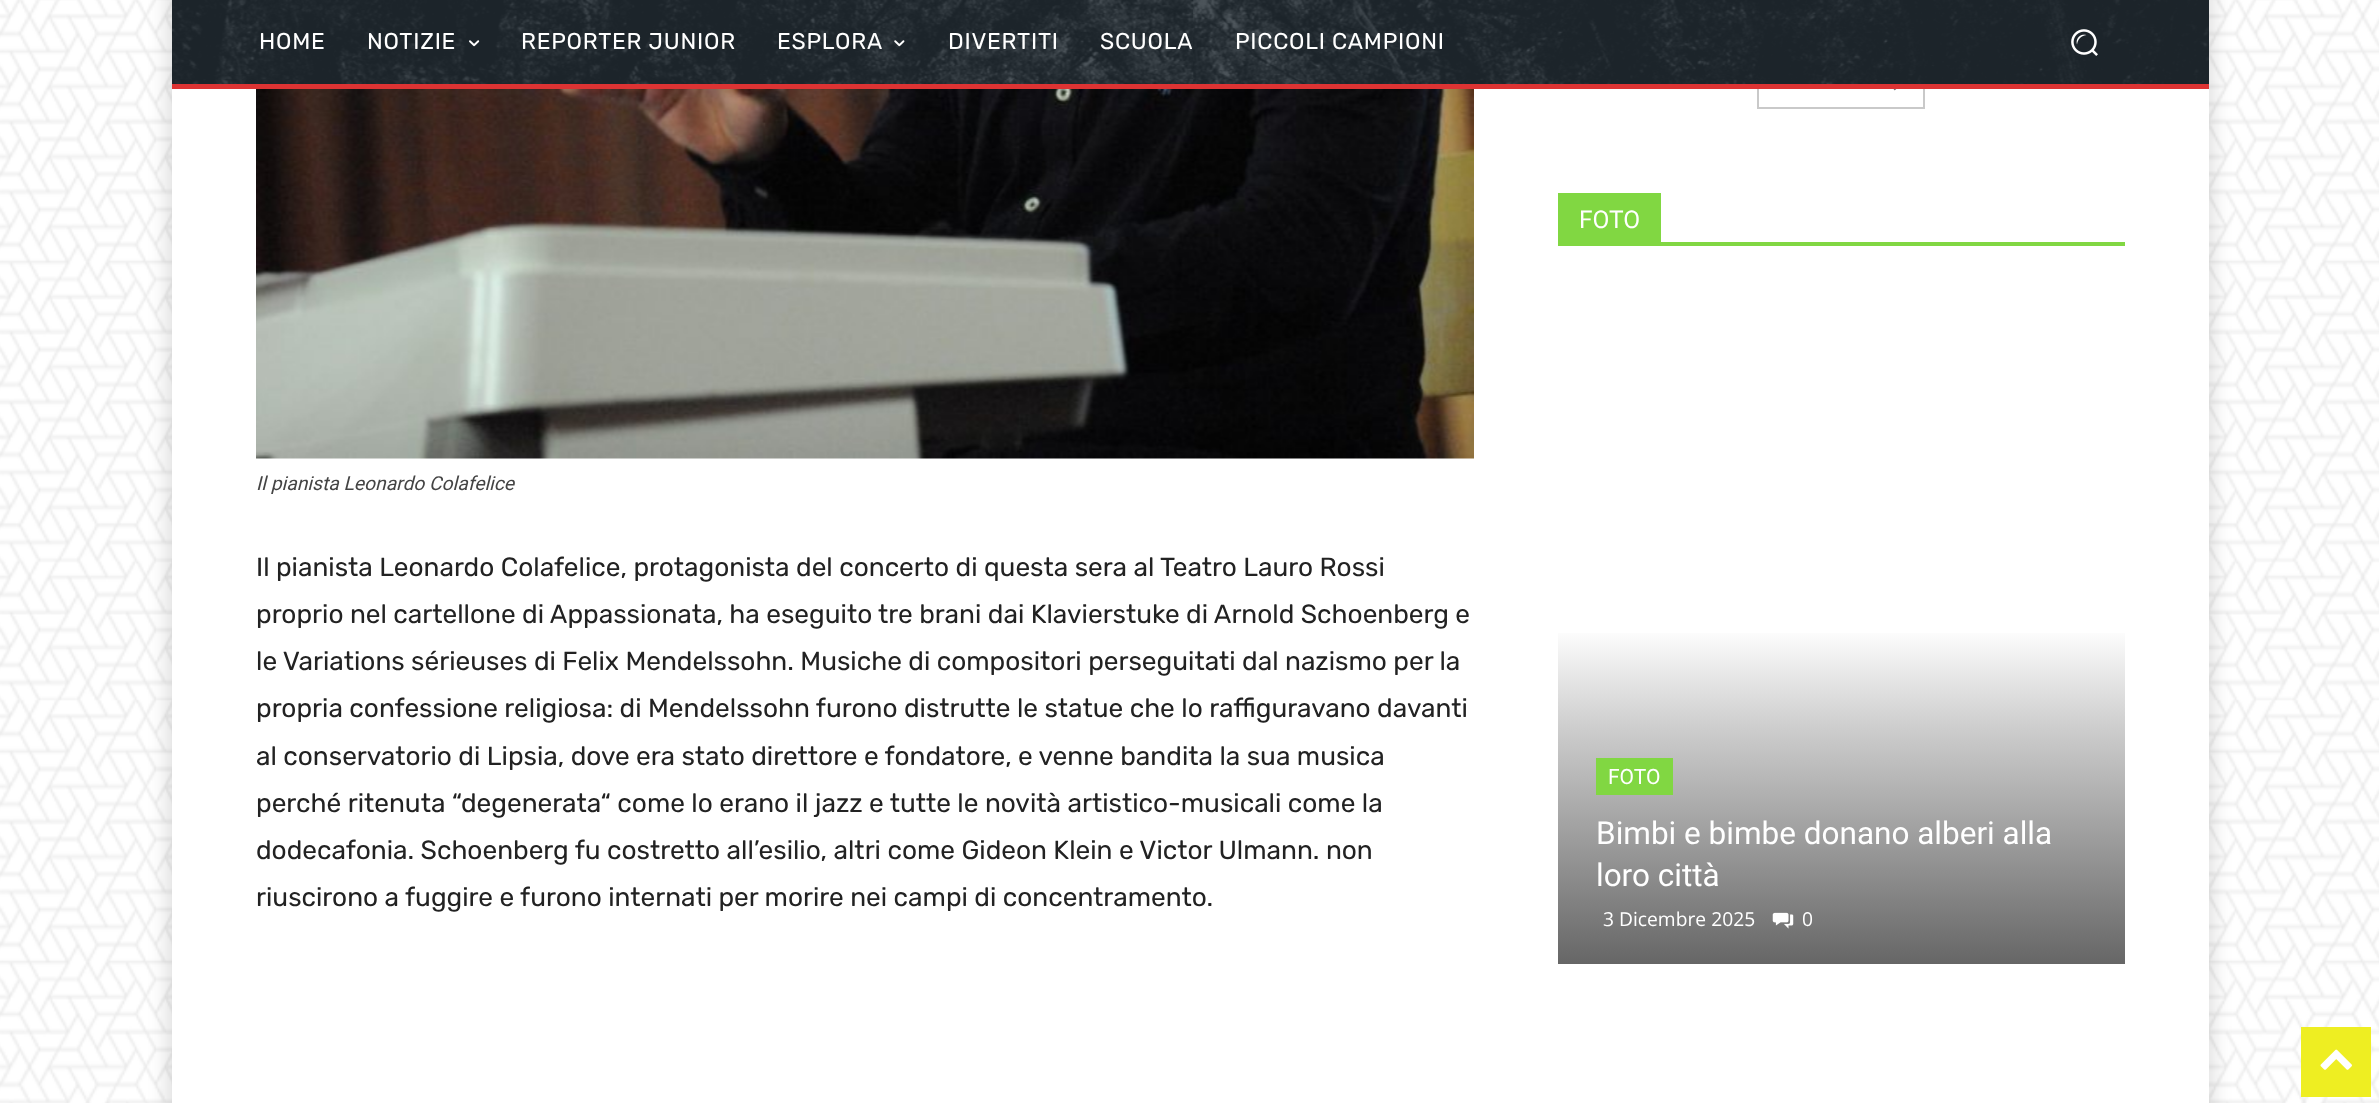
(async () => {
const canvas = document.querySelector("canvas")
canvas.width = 2379
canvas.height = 1103
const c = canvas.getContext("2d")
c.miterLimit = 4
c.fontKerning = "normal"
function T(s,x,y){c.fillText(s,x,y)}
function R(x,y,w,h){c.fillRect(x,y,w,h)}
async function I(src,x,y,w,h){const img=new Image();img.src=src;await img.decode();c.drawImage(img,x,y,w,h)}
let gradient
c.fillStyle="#fff"
R(0,0,2379,1103)
await I("1.png",0,0,2379,1103)
c.fillStyle="#0000001f"
c.filter="blur(9px)"
c.beginPath()
c.rect(166,-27,2048,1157)
c.fill()
c.filter="none"
c.fillStyle="#fff"
R(172,89,2037,1014)
c.strokeStyle="#c9c9c9"
c.lineWidth=2
c.strokeRect(1758,57,166,51)
c.fillStyle="#232d35"
R(172,0,2037,84)
await I("2.png",172,0,2037,84)
c.letterSpacing="0.75px"
c.font="22.75px Rubik"
c.fillStyle="#fff"
T("HOME",259,49)
T("NOTIZIE",367,49)
await I("3.png",469,40,11,7)
T("REPORTER JUNIOR",521,49)
T("ESPLORA",777,49)
await I("4.png",894,40,11,7)
T("DIVERTITI",948,49)
T("SCUOLA",1100,49)
T("PICCOLI CAMPIONI",1235,49)
await I("5.png",2071,29,27,27)
c.fillStyle="#d33"
R(172,84,2037,5)
await I("6.png",256,89,1218,370)
c.letterSpacing="0px"
c.font="italic 19.25px Roboto"
c.fillStyle="#444"
T("Il pianista Leonardo Colafelice",256,490)
c.font="26.25px Rubik"
c.fillStyle="#222"
T("Il pianista Leonardo Colafelice, protagonista del concerto di questa sera al Teatro Lauro Rossi",256,576)
T("proprio nel cartellone di Appassionata, ha eseguito tre brani dai Klavierstuke di Arnold Schoenberg e",256,623)
T("le Variations sérieuses di Felix Mendelssohn. Musiche di compositori perseguitati dal nazismo per la",256,670)
T("propria confessione religiosa: di Mendelssohn furono distrutte le statue che lo raffiguravano davanti",256,717)
T("al conservatorio di Lipsia, dove era stato direttore e fondatore, e venne bandita la sua musica",256,765)
T("perché ritenuta “degenerata“ come lo erano il jazz e tutte le novità artistico-musicali come la",256,812)
T("dodecafonia. Schoenberg fu costretto all’esilio, altri come Gideon Klein e Victor Ulmann. non",256,859)
T("riuscirono a fuggire e furono internati per morire nei campi di concentramento.",256,906)
await I("7.png",1893,89,4,2)
c.fillStyle="#81d742"
R(1558,242,567,4)
R(1558,193,103,49)
c.font="24.5px Roboto"
c.fillStyle="#fff"
T("FOTO",1579,228)
gradient = c.createLinearGradient(1841,964,1841,291)
gradient.addColorStop(0,"#666")
gradient.addColorStop(.35,"#cdcdcd")
gradient.addColorStop(.5,"#fff")
gradient.addColorStop(1,"#fff")
c.fillStyle = gradient
R(1558,633,567,331)
c.fillStyle="#81d742"
R(1596,758,77,37)
c.font="21px Roboto"
c.fillStyle="#fff"
T("FOTO",1608,784)
c.font="31.5px Roboto"
T("Bimbi e bimbe donano alberi alla",1596,844)
T("loro città",1596,886)
c.font="19.25px Open Sans"
T("3 Dicembre 2025",1603,926)
await I("8.png",1772,912,22,17)
T("0",1802,926)
c.fillStyle="#ee2"
R(2301,1027,70,70)
await I("9.png",2320,1049,32,21)
})()
